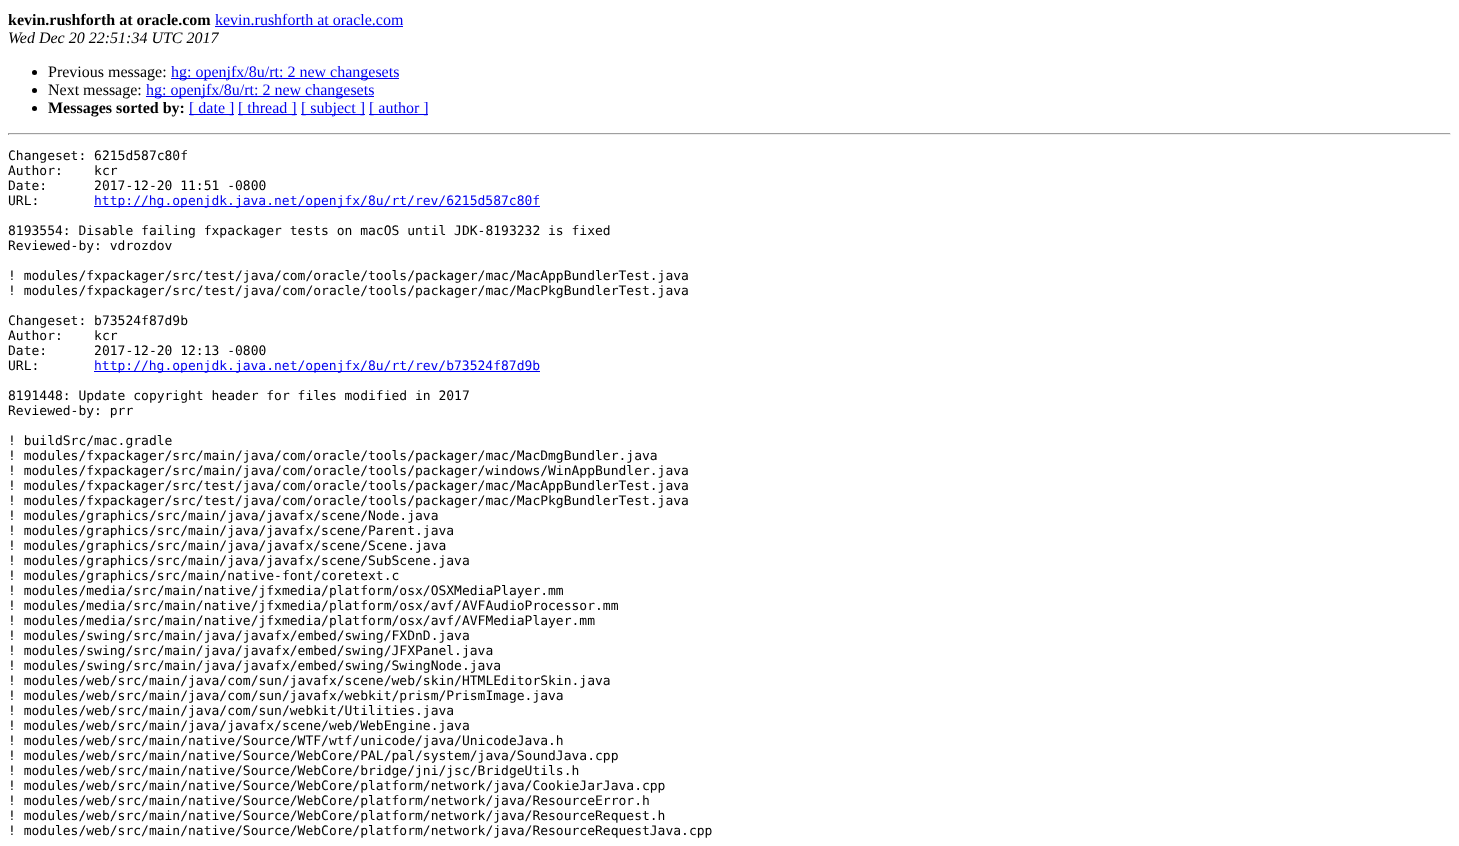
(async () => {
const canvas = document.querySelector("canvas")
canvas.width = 1459
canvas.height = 846
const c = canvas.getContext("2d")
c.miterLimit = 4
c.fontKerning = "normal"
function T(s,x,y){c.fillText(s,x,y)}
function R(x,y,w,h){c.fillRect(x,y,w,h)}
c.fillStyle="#fff"
R(0,0,1459,846)
c.font="bold 16px Liberation Serif"
c.fillStyle="#000"
T("kevin.rushforth at oracle.com",8,25)
c.font="16px Liberation Serif"
c.fillStyle="#00e"
T("kevin.rushforth at oracle.com",215,25)
R(215,26,188,1)
c.font="italic 16px Liberation Serif"
c.fillStyle="#000"
T("Wed Dec 20 22:51:34 UTC 2017",8,43)
c.beginPath()
c.arc(34.5,72.5,2.5,0,7)
c.fill()
c.font="16px Liberation Serif"
T("Previous message:",48,77)
c.fillStyle="#00e"
R(171,78,228,1)
T("hg: openjfx/8u/rt: 2 new changesets",171,77)
c.fillStyle="#000"
c.beginPath()
c.arc(34.5,90.5,2.5,0,7)
c.fill()
T("Next message:",48,95)
c.fillStyle="#00e"
R(146,96,228,1)
T("hg: openjfx/8u/rt: 2 new changesets",146,95)
c.fillStyle="#000"
c.beginPath()
c.arc(34.5,108.5,2.5,0,7)
c.fill()
c.font="bold 16px Liberation Serif"
T("Messages sorted by:",48,113)
c.fillStyle="#00e"
R(189,114,45,1)
c.font="16px Liberation Serif"
T("[ date ]",189,113)
R(238,114,59,1)
T("[ thread ]",238,113)
R(301,114,64,1)
T("[ subject ]",301,113)
R(369,114,59,1)
T("[ author ]",369,113)
c.fillStyle="#9f9f9f"
R(8,133,1443,1)
c.fillStyle="#eee"
R(1450,133,1,2)
R(8,134,1443,1)
c.fillStyle="#9f9f9f"
R(8,133,1,2)
c.font="13px DejaVu Sans Mono"
c.fillStyle="#000"
T("Changeset: 6215d587c80f",8,160)
T("Author:    kcr",8,175)
T("Date:      2017-12-20 11:51 -0800",8,190)
T("URL:",8,205)
c.fillStyle="#00e"
R(94,206,446,1)
T("http://hg.openjdk.java.net/openjfx/8u/rt/rev/6215d587c80f",94,205)
c.fillStyle="#000"
T("8193554: Disable failing fxpackager tests on macOS until JDK-8193232 is fixed",8,235)
T("Reviewed-by: vdrozdov",8,250)
T("! modules/fxpackager/src/test/java/com/oracle/tools/packager/mac/MacAppBundlerTest.java",8,280)
T("! modules/fxpackager/src/test/java/com/oracle/tools/packager/mac/MacPkgBundlerTest.java",8,295)
T("Changeset: b73524f87d9b",8,325)
T("Author:    kcr",8,340)
T("Date:      2017-12-20 12:13 -0800",8,355)
T("URL:",8,370)
c.fillStyle="#00e"
R(94,371,446,1)
T("http://hg.openjdk.java.net/openjfx/8u/rt/rev/b73524f87d9b",94,370)
c.fillStyle="#000"
T("8191448: Update copyright header for files modified in 2017",8,400)
T("Reviewed-by: prr",8,415)
T("! buildSrc/mac.gradle",8,445)
T("! modules/fxpackager/src/main/java/com/oracle/tools/packager/mac/MacDmgBundler.java",8,460)
T("! modules/fxpackager/src/main/java/com/oracle/tools/packager/windows/WinAppBundler.java",8,475)
T("! modules/fxpackager/src/test/java/com/oracle/tools/packager/mac/MacAppBundlerTest.java",8,490)
T("! modules/fxpackager/src/test/java/com/oracle/tools/packager/mac/MacPkgBundlerTest.java",8,505)
T("! modules/graphics/src/main/java/javafx/scene/Node.java",8,520)
T("! modules/graphics/src/main/java/javafx/scene/Parent.java",8,535)
T("! modules/graphics/src/main/java/javafx/scene/Scene.java",8,550)
T("! modules/graphics/src/main/java/javafx/scene/SubScene.java",8,565)
T("! modules/graphics/src/main/native-font/coretext.c",8,580)
T("! modules/media/src/main/native/jfxmedia/platform/osx/OSXMediaPlayer.mm",8,595)
T("! modules/media/src/main/native/jfxmedia/platform/osx/avf/AVFAudioProcessor.mm",8,610)
T("! modules/media/src/main/native/jfxmedia/platform/osx/avf/AVFMediaPlayer.mm",8,625)
T("! modules/swing/src/main/java/javafx/embed/swing/FXDnD.java",8,640)
T("! modules/swing/src/main/java/javafx/embed/swing/JFXPanel.java",8,655)
T("! modules/swing/src/main/java/javafx/embed/swing/SwingNode.java",8,670)
T("! modules/web/src/main/java/com/sun/javafx/scene/web/skin/HTMLEditorSkin.java",8,685)
T("! modules/web/src/main/java/com/sun/javafx/webkit/prism/PrismImage.java",8,700)
T("! modules/web/src/main/java/com/sun/webkit/Utilities.java",8,715)
T("! modules/web/src/main/java/javafx/scene/web/WebEngine.java",8,730)
T("! modules/web/src/main/native/Source/WTF/wtf/unicode/java/UnicodeJava.h",8,745)
T("! modules/web/src/main/native/Source/WebCore/PAL/pal/system/java/SoundJava.cpp",8,760)
T("! modules/web/src/main/native/Source/WebCore/bridge/jni/jsc/BridgeUtils.h",8,775)
T("! modules/web/src/main/native/Source/WebCore/platform/network/java/CookieJarJava.cpp",8,790)
T("! modules/web/src/main/native/Source/WebCore/platform/network/java/ResourceError.h",8,805)
T("! modules/web/src/main/native/Source/WebCore/platform/network/java/ResourceRequest.h",8,820)
T("! modules/web/src/main/native/Source/WebCore/platform/network/java/ResourceRequestJava.cpp",8,835)
})()
